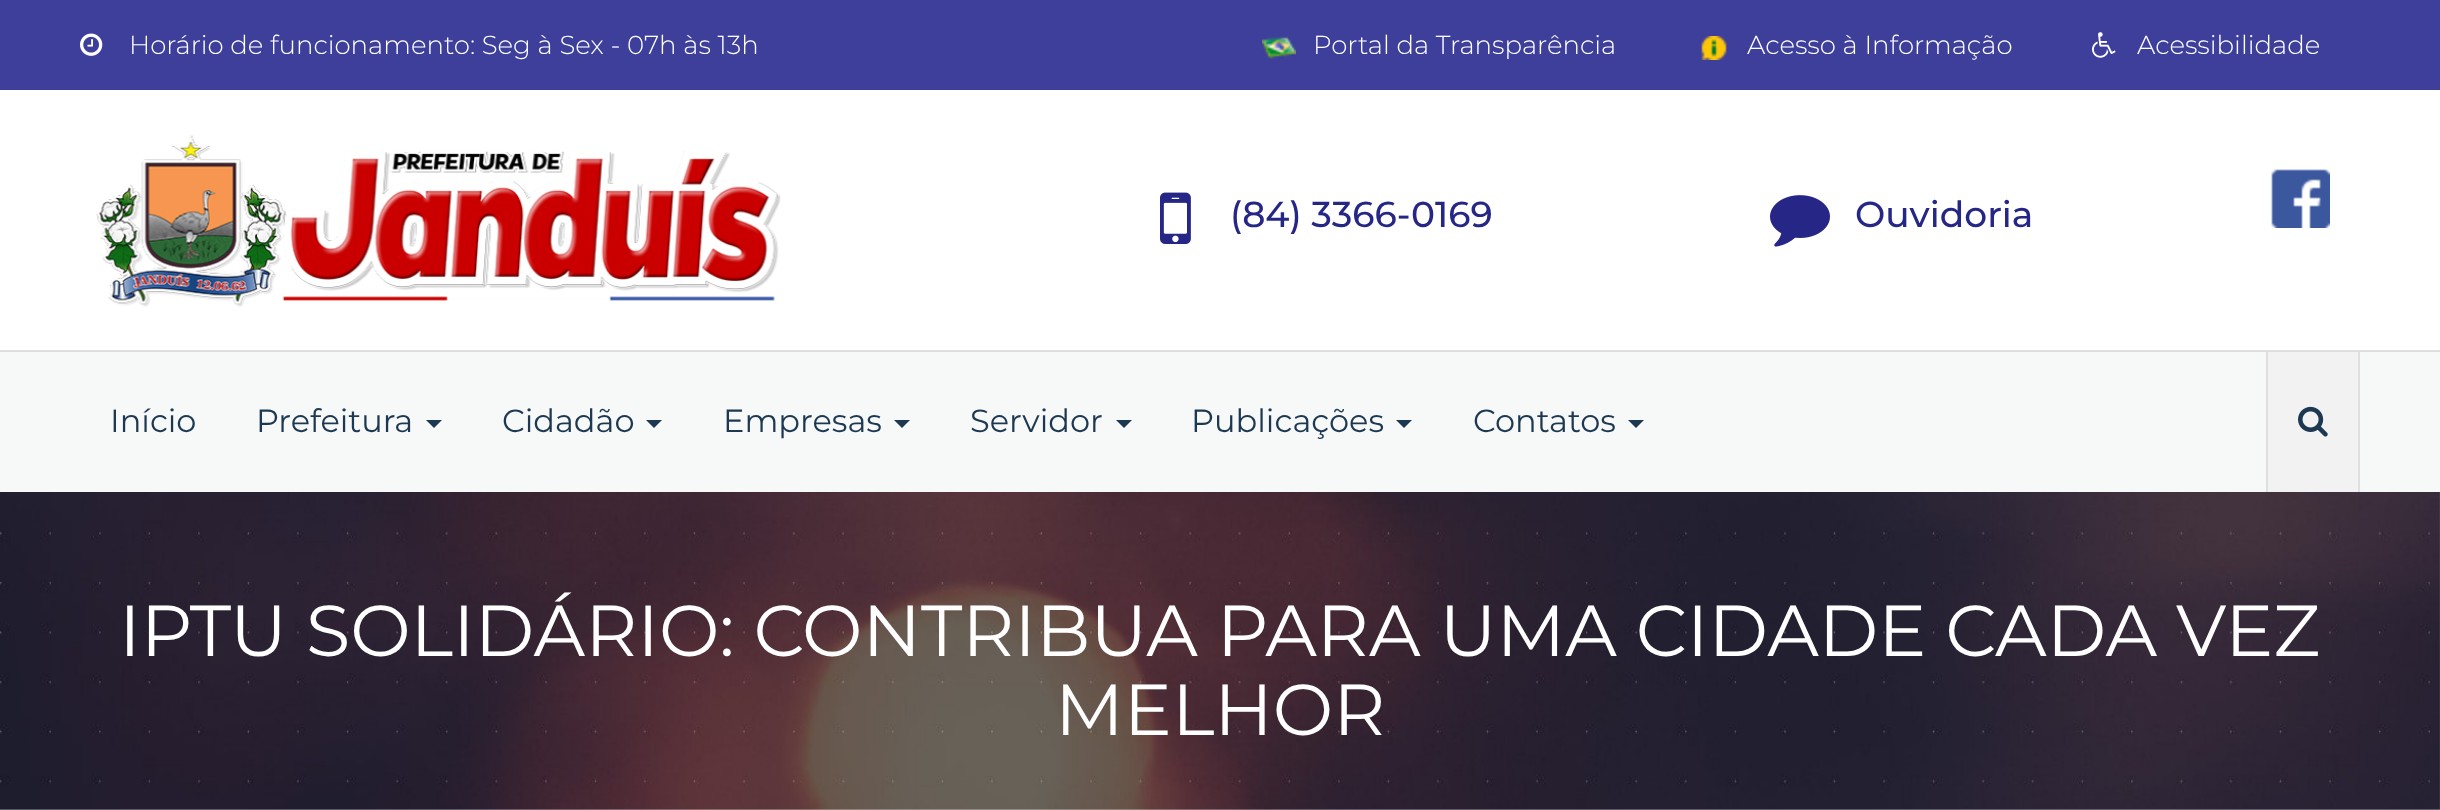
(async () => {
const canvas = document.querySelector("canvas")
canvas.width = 2440
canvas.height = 810
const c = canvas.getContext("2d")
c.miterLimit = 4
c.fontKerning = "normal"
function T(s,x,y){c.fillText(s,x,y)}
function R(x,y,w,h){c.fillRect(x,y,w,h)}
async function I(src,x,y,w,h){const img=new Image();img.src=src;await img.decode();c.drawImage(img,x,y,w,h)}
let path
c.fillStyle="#fff"
R(0,0,2440,810)
c.fillStyle="#3e3f9b"
R(0,0,2440,90)
await I("1.png",80,33,23,23)
c.font="300 26px Montserrat"
c.fillStyle="#fff"
T("Horário de funcionamento: Seg à Sex - 07h às 13h",129,54)
await I("2.png",1262,37,34,22)
T("Portal da Transparência",1313,54)
await I("3.png",1701,36,26,24)
T("Acesso à Informação",1747,54)
await I("4.png",2092,32,24,26)
T("Acessibilidade",2137,54)
await I("5.png",96,135,685,172)
await I("6.png",1160,192,31,52)
c.font="500 36px Montserrat"
c.fillStyle="#262686"
T("(84) 3366-0169",1230,227)
await I("7.png",1770,195,60,52)
T("Ouvidoria",1855,227)
await I("8.png",2271,169,59,59)
c.fillStyle="#f7f8f8"
R(0,352,2440,140)
c.fillStyle="#dedfdf"
R(0,350,2440,2)
c.font="32px Montserrat"
c.fillStyle="#1d3851"
T("Início",110,432)
T("Prefeitura",256,432)
path = new Path2D("M426 420h16l-8 8z")
c.fill(path)
T("Cidadão",502,432)
path = new Path2D("M646 420h16l-8 8z")
c.fill(path)
T("Empresas",723,432)
path = new Path2D("M894 420h16l-8 8z")
c.fill(path)
T("Servidor",970,432)
path = new Path2D("M1116 420h16l-8 8z")
c.fill(path)
T("Publicações",1191,432)
path = new Path2D("M1396 420h16l-8 8z")
c.fill(path)
T("Contatos",1473,432)
path = new Path2D("M1628 420h16l-8 8z")
c.fill(path)
c.fillStyle="#dedfdf"
R(2358,352,2,140)
R(2266,352,2,140)
c.fillStyle="#f2f2f2"
R(2268,352,90,140)
await I("9.png",2298,406,30,31)
await I("10.png",0,492,2440,318)
c.font="72px Montserrat"
c.fillStyle="#fff"
T("IPTU SOLIDÁRIO: CONTRIBUA PARA UMA CIDADE CADA VEZ",119,656)
T("MELHOR",1055,735)
})()
